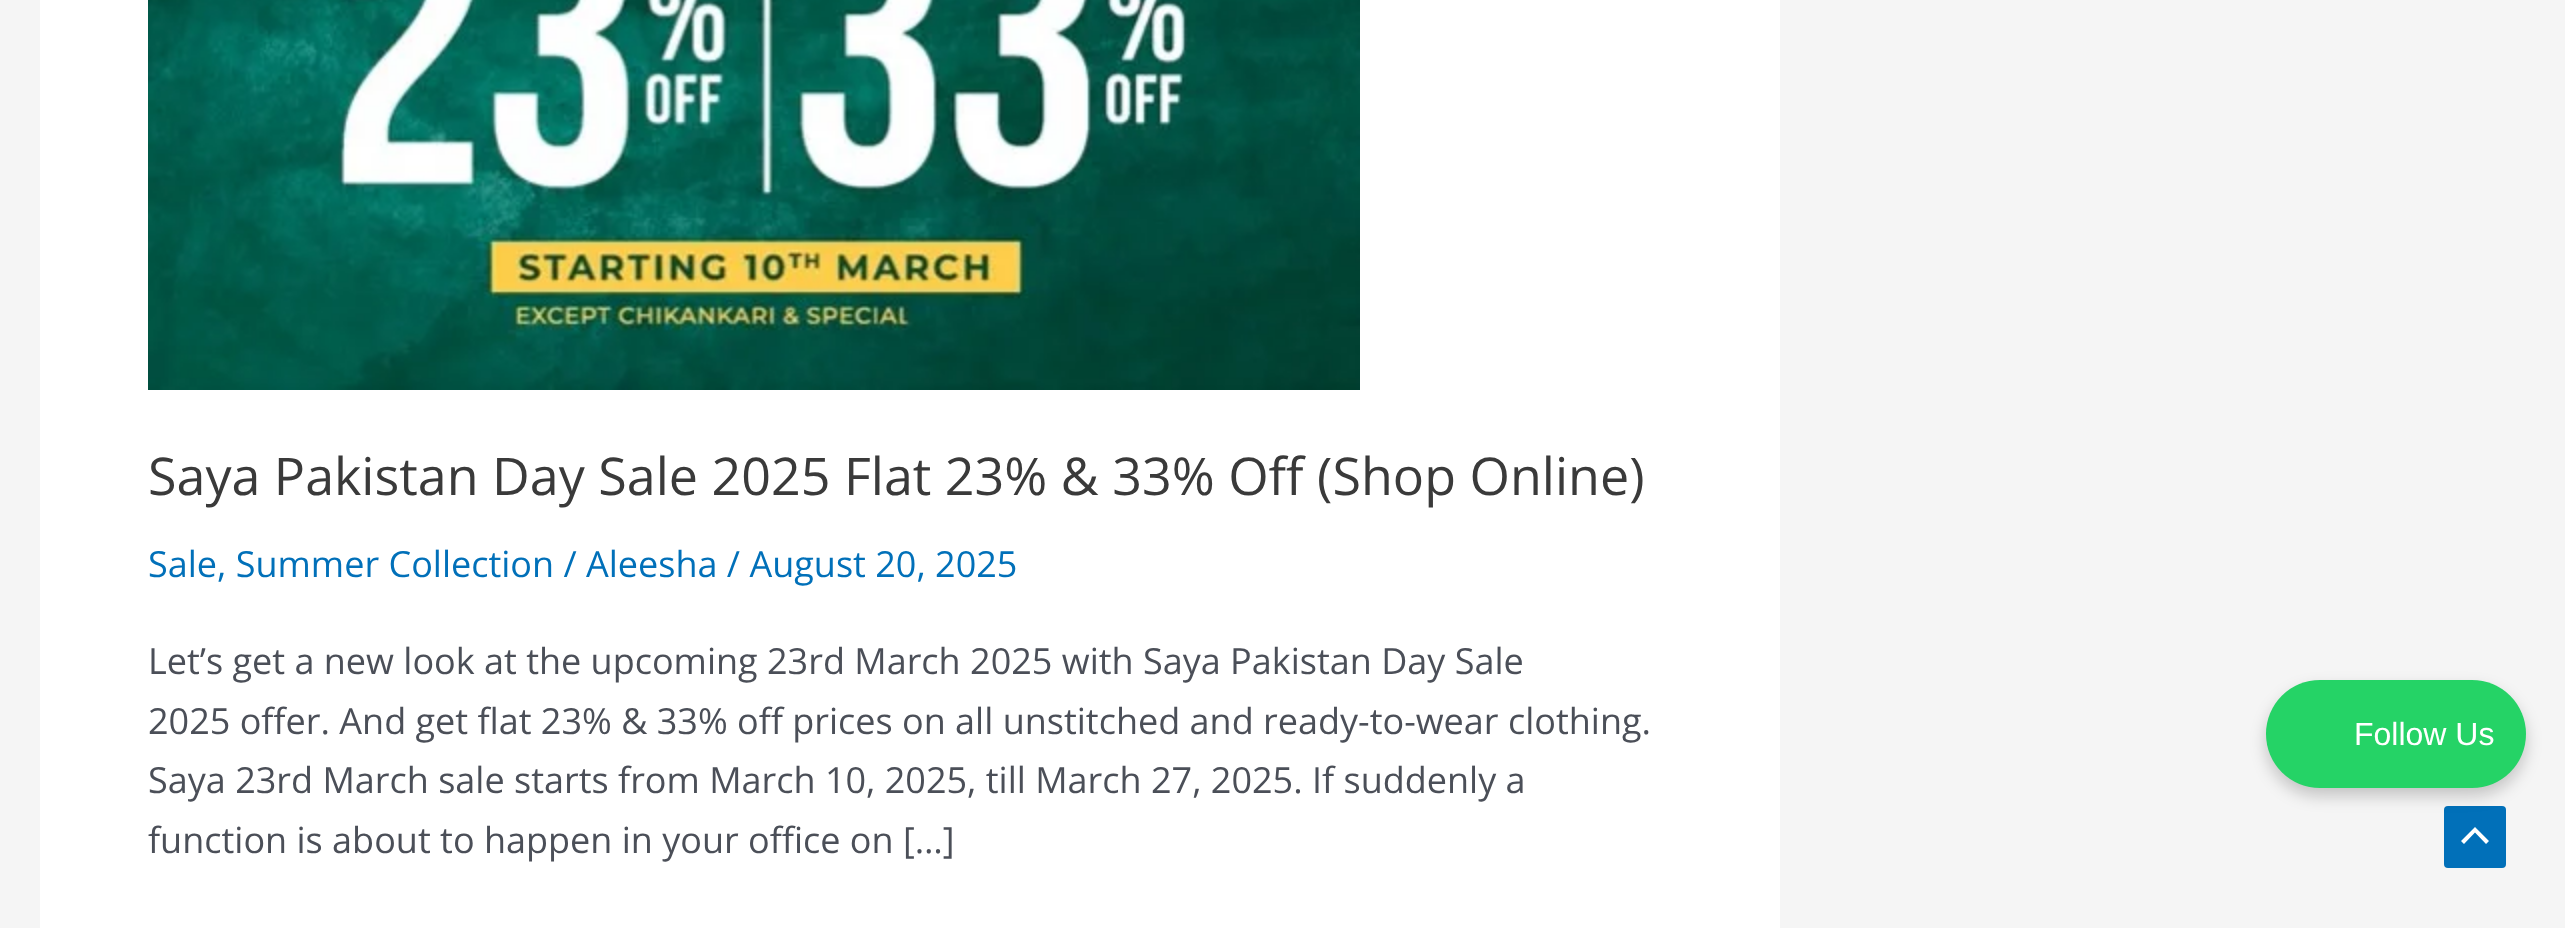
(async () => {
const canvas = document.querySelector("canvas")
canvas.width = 2565
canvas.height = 928
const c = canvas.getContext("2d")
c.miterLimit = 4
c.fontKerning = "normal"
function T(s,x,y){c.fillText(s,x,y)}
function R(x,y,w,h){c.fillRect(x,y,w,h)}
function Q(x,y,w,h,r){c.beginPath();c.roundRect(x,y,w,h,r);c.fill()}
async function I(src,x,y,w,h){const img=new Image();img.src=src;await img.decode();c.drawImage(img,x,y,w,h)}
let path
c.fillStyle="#f5f5f5"
R(0,0,2565,928)
c.fillStyle="#fff"
R(40,0,1740,928)
await I("1.png",148,0,1212,390)
c.font="52px Open Sans"
c.fillStyle="#3a3a3a"
T("Saya Pakistan Day Sale 2025 Flat 23% & 33% Off (Shop Online)",148,495)
c.font="36px Open Sans"
c.fillStyle="#0170b9"
T("Sale, Summer Collection / Aleesha / August 20, 2025",148,577)
c.fillStyle="#4b4f58"
T("Let’s get a new look at the upcoming 23rd March 2025 with Saya Pakistan Day Sale",148,674)
T("2025 offer. And get flat 23% & 33% off prices on all unstitched and ready-to-wear clothing.",148,734)
T("Saya 23rd March sale starts from March 10, 2025, till March 27, 2025. If suddenly a",148,793)
T("function is about to happen in your office on […]",148,853)
c.fillStyle="#0170b9"
Q(2444,806,62,62,4)
c.fillStyle="#00000033"
c.filter="blur(8px)"
c.beginPath()
c.roundRect(2266,688,260,108,54)
c.fill()
c.filter="none"
c.fillStyle="#25d366"
Q(2266,680,260,108,54)
c.font="32px Liberation Sans"
c.fillStyle="#fff"
T("Follow Us",2354,745)
path = new Path2D("M2489 841l-14-14l-14 14l3 3l11-11.5l11 11.5z")
c.fill(path)
})()
